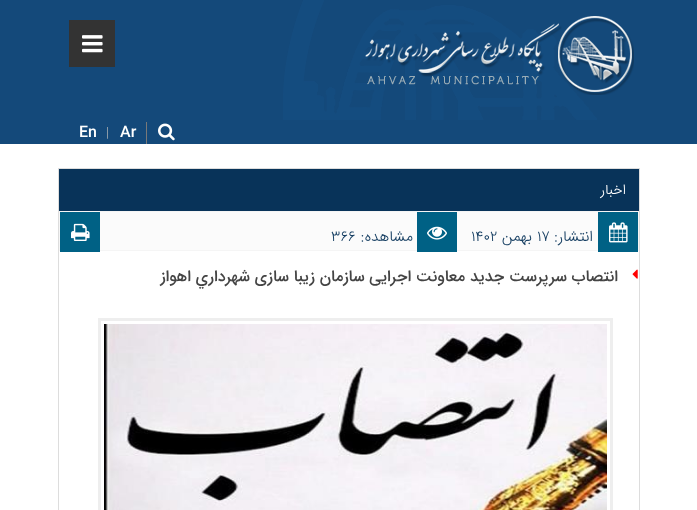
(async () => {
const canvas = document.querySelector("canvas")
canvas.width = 697
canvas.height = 510
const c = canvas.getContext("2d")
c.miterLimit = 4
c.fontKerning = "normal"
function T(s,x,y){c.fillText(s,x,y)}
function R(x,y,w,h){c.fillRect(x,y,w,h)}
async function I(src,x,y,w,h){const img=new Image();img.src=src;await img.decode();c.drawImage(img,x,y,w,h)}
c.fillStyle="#fff"
R(0,0,697,510)
c.fillStyle="#14497a"
R(0,0,697,144)
await I("1.png",283,0,314,120)
await I("2.png",365,16,269,79)
c.fillStyle="#333"
R(69,20,46,47)
await I("3.png",82,35,21,18)
await I("4.png",158,123,17,18)
c.fillStyle="#797979"
R(146,122,1,22)
c.font="500 16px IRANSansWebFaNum"
c.fillStyle="#fff"
T("Ar",120,137)
c.font="300 14px IRANSansWebFaNum"
c.fillStyle="#b9b9b9"
T("|",106,137)
c.font="500 16px IRANSansWebFaNum"
c.fillStyle="#fff"
T("En",79,137)
c.strokeStyle="#ddd"
c.strokeRect(58.5,168.5,581,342)
c.fillStyle="#083359"
R(59,169,580,42)
c.letterSpacing="-1px"
c.direction="rtl"
c.font="300 14px IRANSansWebFaNum"
c.fillStyle="#fff"
T("اخبار",626,194)
c.fillStyle="#fbfbfb"
R(100,212,498,38)
c.strokeStyle="#f5f5f5"
c.strokeRect(59.5,211.5,579,39)
c.fillStyle="#006185"
R(598,212,40,40)
await I("5.png",609,222,19,21)
c.letterSpacing="0px"
c.font="300 15px IRANSansWebFaNum"
c.fillStyle="#143d61"
T("انتشار:",593,241)
c.direction="ltr"
T("17",537,241)
c.direction="rtl"
T("بهمن",532,241)
c.direction="ltr"
T("1402",471,241)
c.fillStyle="#006185"
R(417,212,40,40)
await I("6.png",427,226,20,14)
c.direction="rtl"
c.fillStyle="#143d61"
T("مشاهده:",413,241)
c.direction="ltr"
T("366",331,241)
c.fillStyle="#006185"
R(60,212,40,40)
await I("7.png",71,223,19,18)
await I("8.png",632,269,6,10)
c.direction="rtl"
c.font="500 16px IRANSansWebFaNum"
c.fillStyle="#444"
T("انتصاب سرپرست جدید معاونت اجرایی سازمان زیبا سازی شهرداري اهواز",618,281)
c.strokeStyle="#eee"
c.lineWidth=3
c.strokeRect(99.5,319.5,512,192)
await I("9.png",104,324,503,186)
})()
